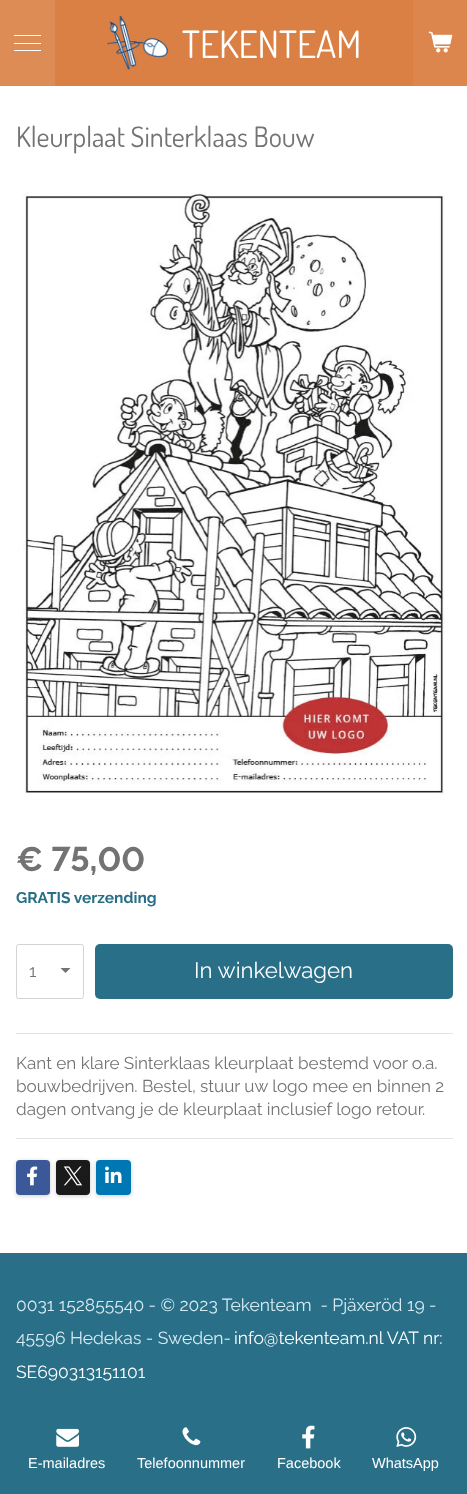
(async () => {
const canvas = document.querySelector("canvas")
canvas.width = 467
canvas.height = 1494
const c = canvas.getContext("2d")
c.miterLimit = 4
c.fontKerning = "normal"
function T(s,x,y){c.fillText(s,x,y)}
function R(x,y,w,h){c.fillRect(x,y,w,h)}
function Q(x,y,w,h,r){c.beginPath();c.roundRect(x,y,w,h,r);c.fill()}
async function I(src,x,y,w,h){const img=new Image();img.src=src;await img.decode();c.drawImage(img,x,y,w,h)}
let path
c.fillStyle="#da8044"
R(0,0,467,1494)
c.fillStyle="#dd8c55"
R(0,0,55,86)
c.fillStyle="#fff"
R(14,43,27,1)
R(14,35,27,1)
R(14,50,27,1)
await I("1.png",107,15,61,55)
c.font="37.5px Dosis"
T("TEKENTEAM",182,58)
c.fillStyle="#dc864d"
R(413,0,54,86)
await I("2.png",428,31,25,22)
c.fillStyle="#fff"
R(0,86,467,1167)
c.font="28.1px Dosis"
c.fillStyle="#737373"
T("Kleurplaat Sinterklaas Bouw",16,147)
await I("3.png",22,192,423,603)
c.font="bold 34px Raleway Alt"
T("€ 75,00",16,871)
c.font="bold 15.5px Raleway"
c.fillStyle="#296f87"
T("GRATIS verzending",16,903)
c.save()
c.beginPath()
c.rect(60,968,11,6)
c.clip()
c.fillStyle="#737373"
path = new Path2D("M65.5 973l-5.5-5.5h11z")
c.fill(path)
c.restore()
c.beginPath()
c.roundRect(16.5,944.5,67,54,2)
c.strokeStyle="#d3d3d3"
c.stroke()
c.font="17.1px Raleway"
c.fillStyle="#737373"
T("1",29,977)
c.fillStyle="#296f87"
Q(95,944,358,55,5)
c.font="22.25px Raleway"
c.fillStyle="#fff"
T("In winkelwagen",194,978)
c.fillStyle="#e3e3e3"
R(16,1033,437,1)
c.font="17.1px Raleway"
c.fillStyle="#737373"
T("Kant en klare Sinterklaas kleurplaat bestemd voor o.a.",16,1069)
T("bouwbedrijven. Bestel, stuur uw logo mee en binnen 2",16,1092)
T("dagen ontvang je de kleurplaat inclusief logo retour.",16,1115)
c.fillStyle="#e3e3e3"
R(16,1138,437,1)
c.fillStyle="#00000033"
c.filter="blur(2px)"
c.beginPath()
c.roundRect(16,1161,34,35,4)
c.fill()
c.filter="none"
c.fillStyle="#3b5998"
Q(16,1160,34,35,4)
await I("4.png",27,1166,11,20)
c.fillStyle="#00000033"
c.filter="blur(2px)"
c.beginPath()
c.roundRect(56,1161,34,35,4)
c.fill()
c.filter="none"
c.fillStyle="#1a1a1a"
Q(56,1160,34,35,4)
await I("5.png",63,1166,20,20)
c.fillStyle="#00000033"
c.filter="blur(2px)"
c.beginPath()
c.roundRect(96,1161,35,35,4)
c.fill()
c.filter="none"
c.fillStyle="#0077b5"
Q(96,1160,35,35,4)
await I("6.png",105,1166,17,17)
c.fillStyle="#296f87"
R(0,1253,467,241)
c.font="17.5px Raleway"
c.fillStyle="#d6ebf3"
T("0031 152855540 - © 2023 Tekenteam  - Pjäxeröd 19 -",16,1311)
T("45596 Hedekas - Sweden-",16,1344)
c.fillStyle="#fff"
T("info@tekenteam.nl VAT nr:",234,1344)
T("SE690313151101",16,1378)
await I("7.png",56,1428,23,19)
c.font="14.5px Liberation Sans"
T("E-mailadres",28,1468)
await I("8.png",182,1427,19,19)
T("Telefoonnummer",137,1468)
await I("9.png",302,1425,13,24)
T("Facebook",277,1468)
await I("10.png",396,1427,21,20)
T("WhatsApp",372,1468)
})()
